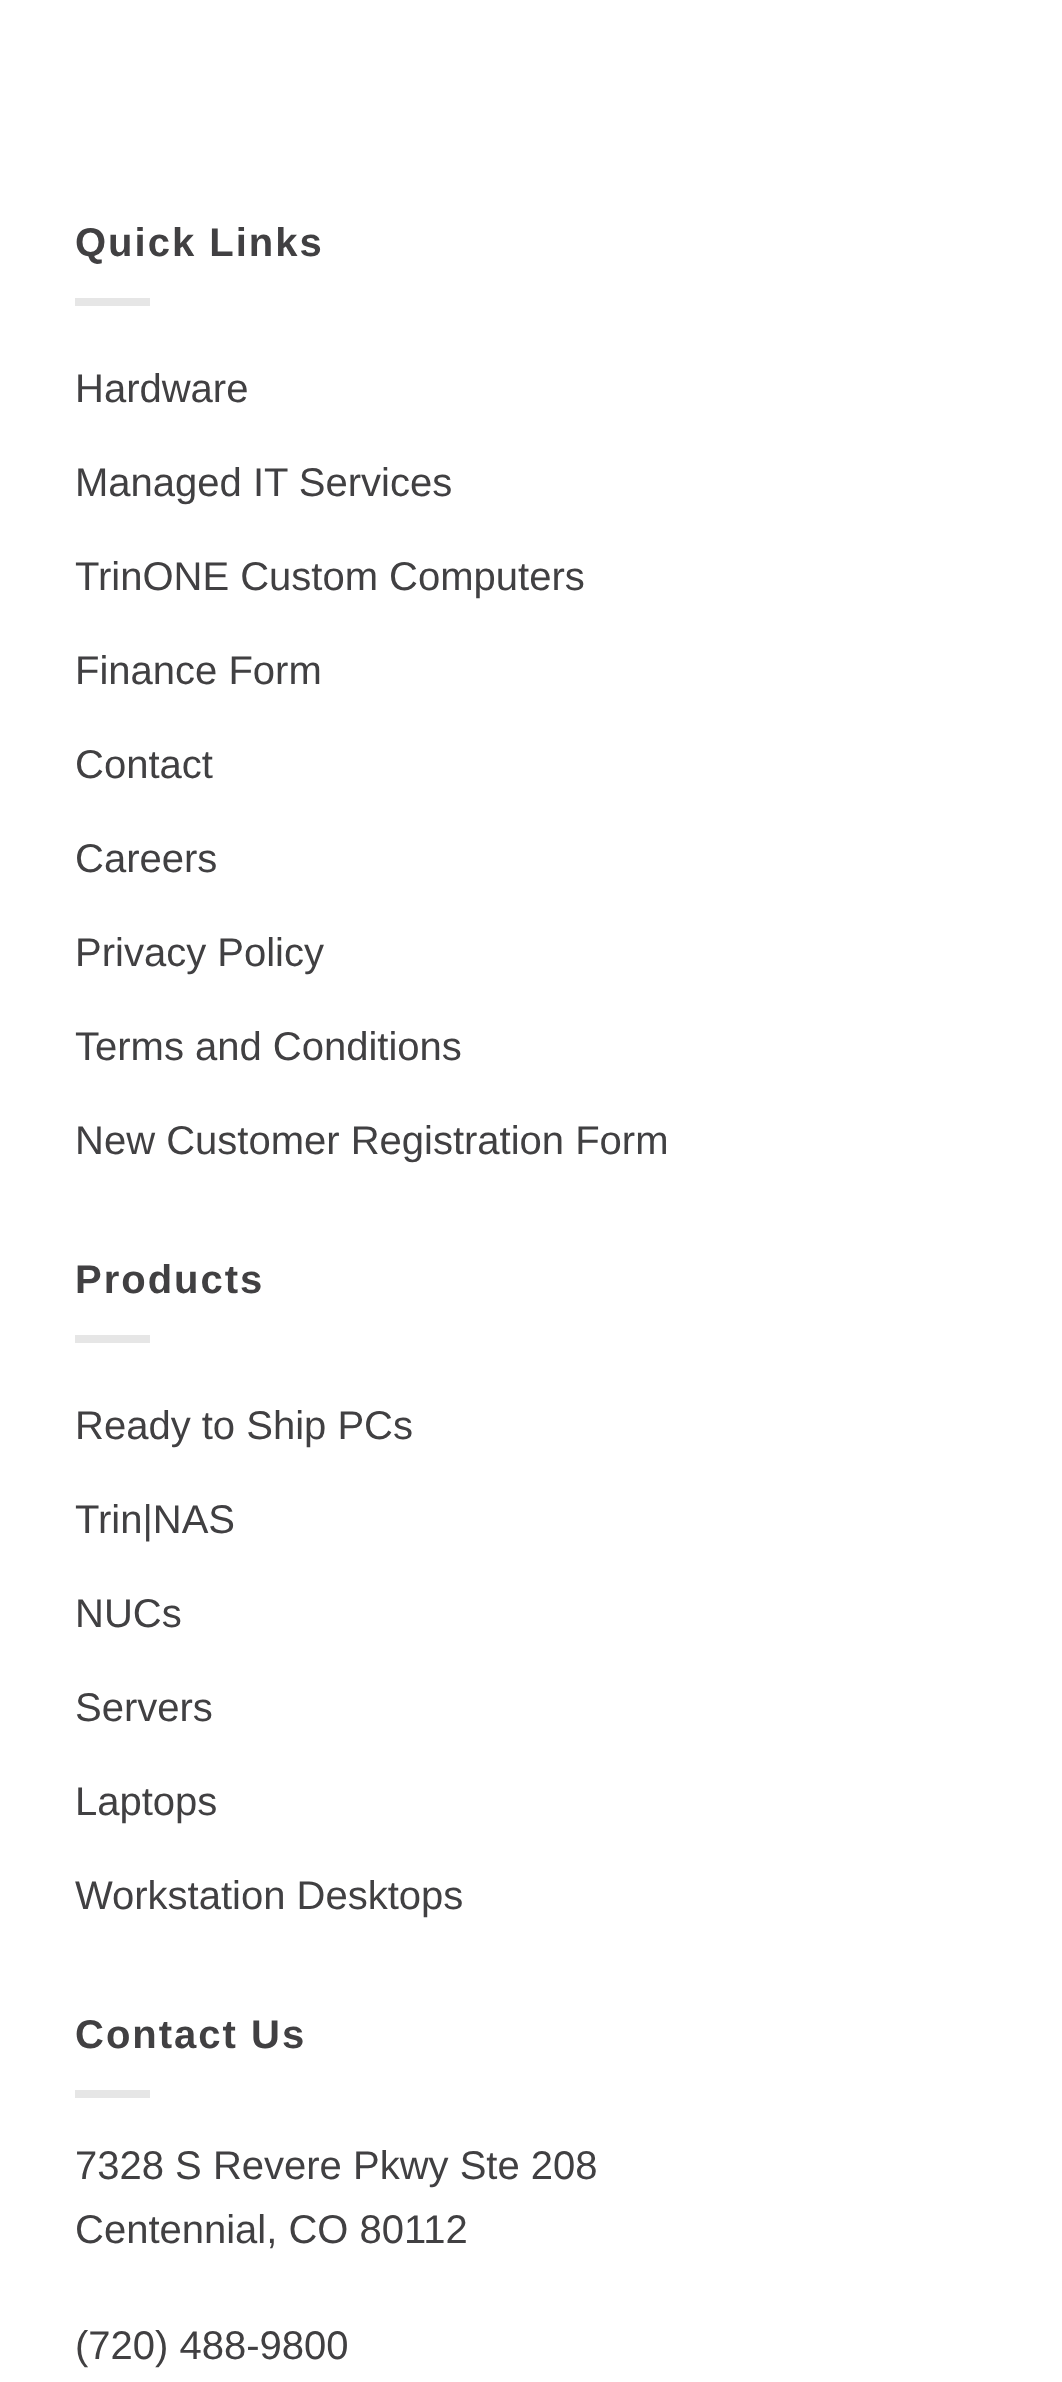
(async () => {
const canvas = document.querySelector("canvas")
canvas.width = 1062
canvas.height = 2382
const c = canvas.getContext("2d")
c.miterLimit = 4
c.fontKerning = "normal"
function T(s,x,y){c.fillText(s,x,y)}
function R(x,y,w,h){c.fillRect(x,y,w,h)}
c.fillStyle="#fff"
R(0,0,1062,2382)
c.letterSpacing="2px"
c.font="bold 40px Liberation Sans"
c.fillStyle="#414042"
T("Quick Links",75,256)
c.fillStyle="#e6e6e6"
R(75,298,75,8)
c.letterSpacing="0px"
c.font="40px Liberation Sans"
c.fillStyle="#414042"
T("Hardware",75,402)
T("Managed IT Services",75,496)
T("TrinONE Custom Computers",75,590)
T("Finance Form",75,684)
T("Contact",75,778)
T("Careers",75,872)
T("Privacy Policy",75,966)
T("Terms and Conditions",75,1060)
T("New Customer Registration Form",75,1154)
c.letterSpacing="2px"
c.font="bold 40px Liberation Sans"
T("Products",75,1293)
c.fillStyle="#e6e6e6"
R(75,1335,75,8)
c.letterSpacing="0px"
c.font="40px Liberation Sans"
c.fillStyle="#414042"
T("Ready to Ship PCs",75,1439)
T("Trin|NAS",75,1533)
T("NUCs",75,1627)
T("Servers",75,1721)
T("Laptops",75,1815)
T("Workstation Desktops",75,1909)
c.letterSpacing="2px"
c.font="bold 40px Liberation Sans"
T("Contact Us",75,2048)
c.fillStyle="#e6e6e6"
R(75,2090,75,8)
c.letterSpacing="0px"
c.font="40px Liberation Sans"
c.fillStyle="#414042"
T("7328 S Revere Pkwy Ste 208",75,2179)
T("Centennial, CO 80112",75,2243)
T("(720) 488-9800",75,2359)
})()
